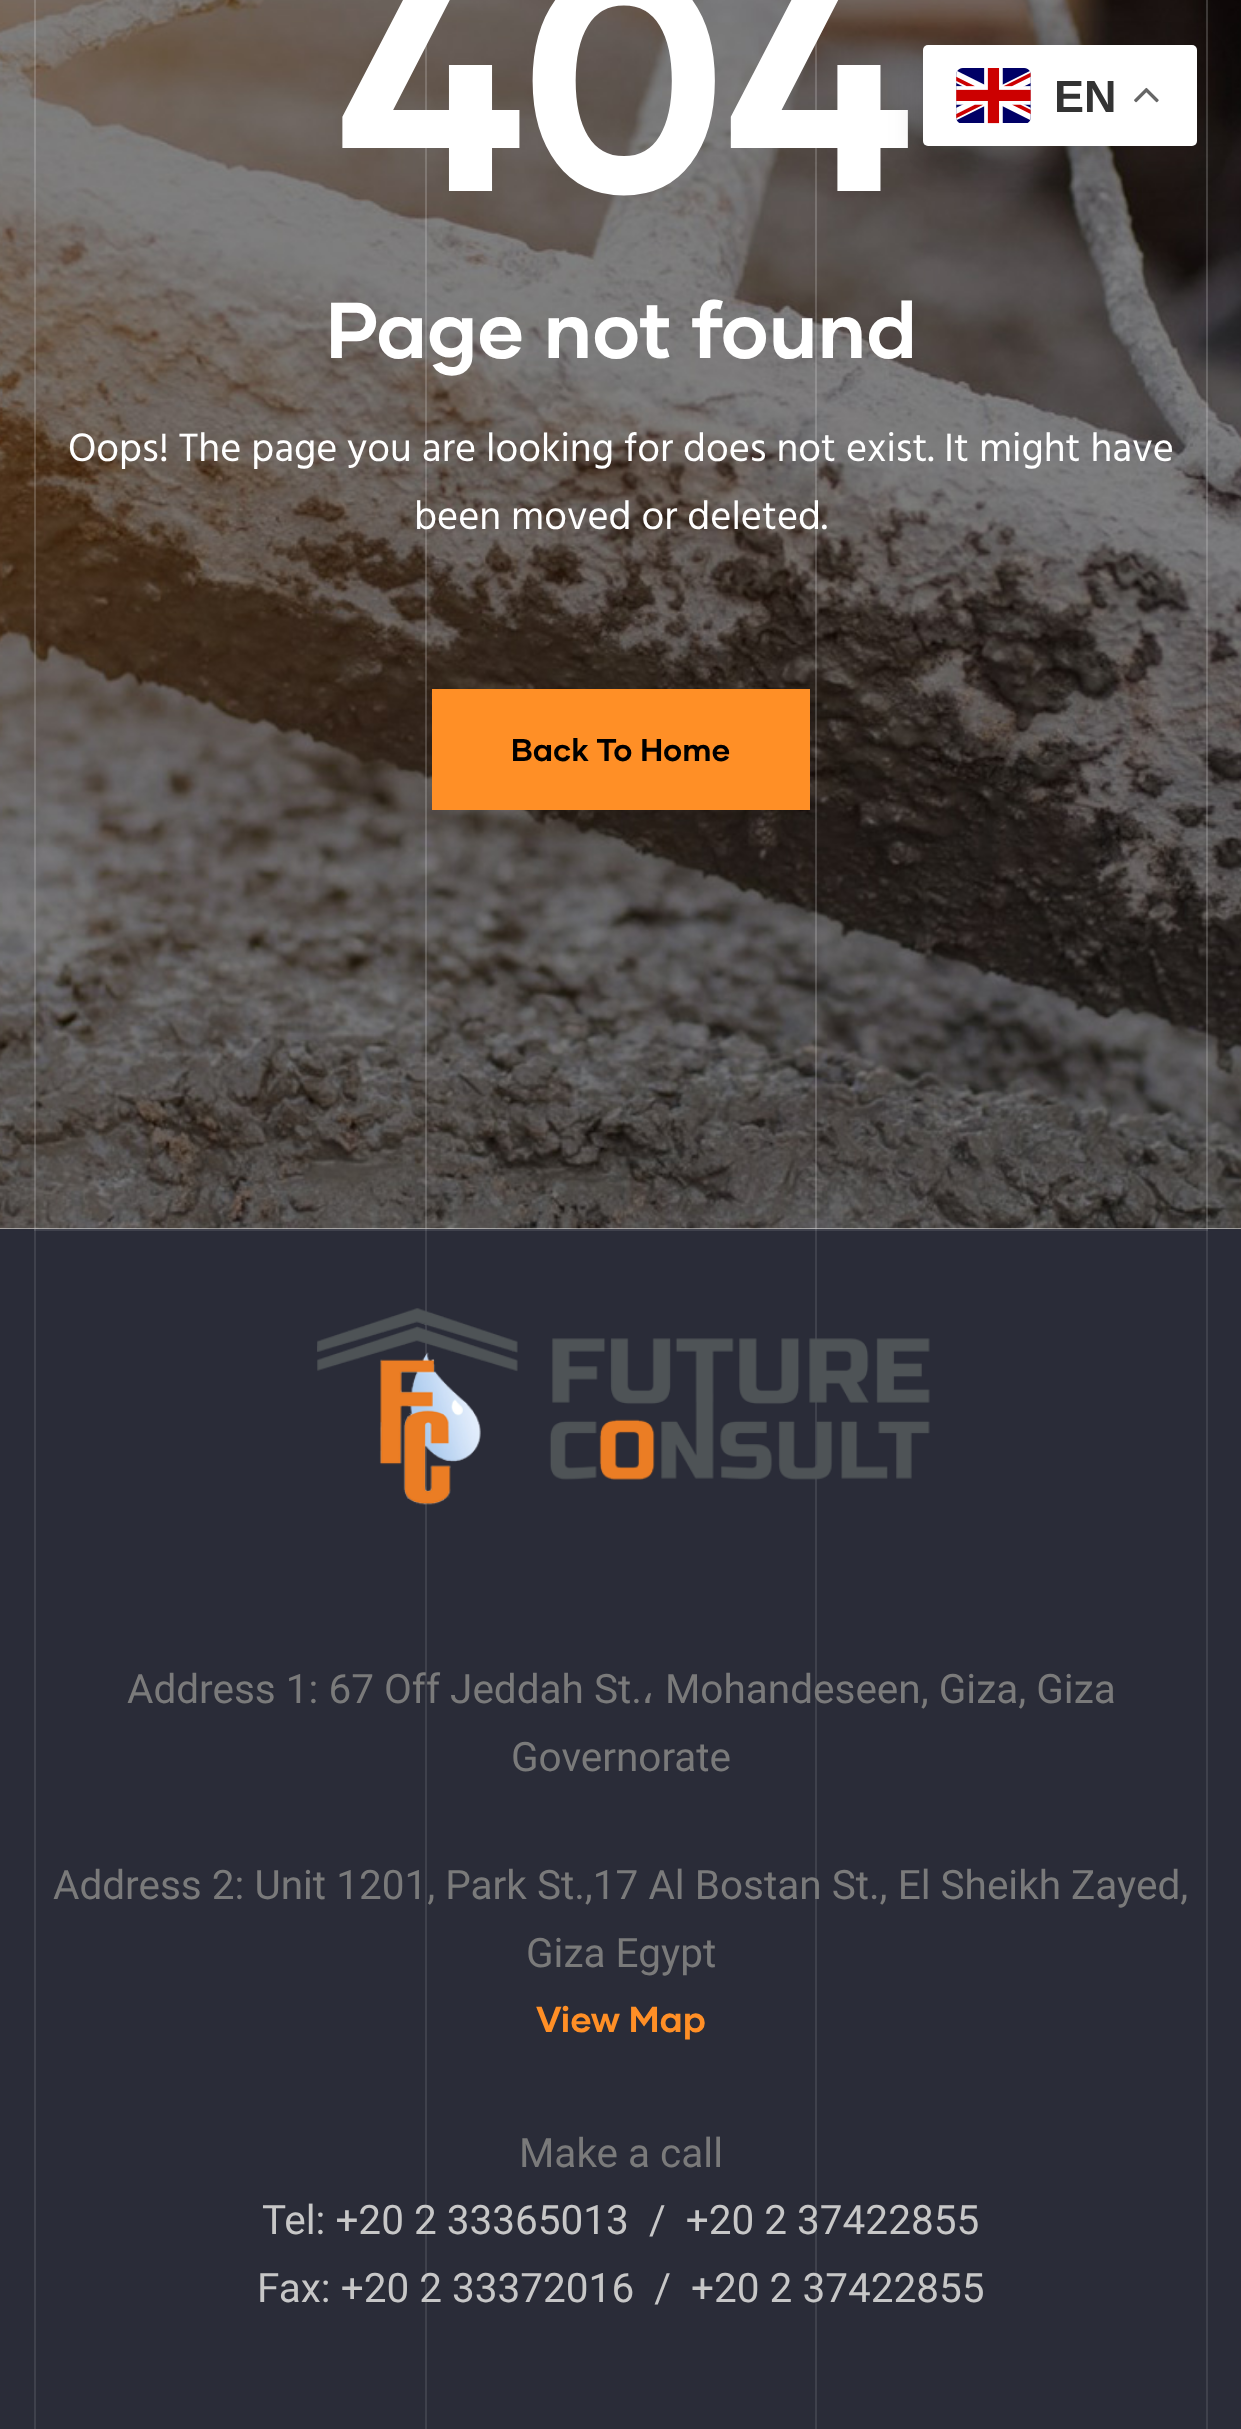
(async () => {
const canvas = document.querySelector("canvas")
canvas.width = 1241
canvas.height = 2429
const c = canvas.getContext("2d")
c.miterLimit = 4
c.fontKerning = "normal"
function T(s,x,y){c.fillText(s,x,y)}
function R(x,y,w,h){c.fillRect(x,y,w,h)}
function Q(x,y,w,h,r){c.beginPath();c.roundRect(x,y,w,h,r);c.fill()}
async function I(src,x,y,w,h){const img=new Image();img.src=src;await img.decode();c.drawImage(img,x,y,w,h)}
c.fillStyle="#f5f5f5"
R(0,0,1241,2429)
c.fillStyle="#e9e9e9"
R(1206,1228,2,1)
R(34,1228,2,1)
R(425,1228,2,1)
R(815,1228,2,1)
await I("1.png",0,0,1241,1229)
c.fillStyle="#e9e9e933"
R(1206,0,2,1229)
R(34,0,2,1229)
R(425,0,2,1229)
R(815,0,2,1229)
c.letterSpacing="-4.5px"
c.font="bold 315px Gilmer"
c.fillStyle="#fff"
T("404",333,191)
c.letterSpacing="0px"
c.font="bold 78.75px Gilmer"
T("Page not found",326,358)
c.font="40.5px Hind"
T("Oops! The page you are looking for does not exist. It might have",68,461)
T("been moved or deleted.",414,529)
c.fillStyle="#ff8f26"
R(432,689,378,121)
c.font="bold 31.5px Gilmer"
c.fillStyle="#000"
T("Back To Home",511,761)
c.fillStyle="#2a2c38"
R(0,1229,1241,1200)
c.fillStyle="#3f414c"
R(1206,1229,2,1200)
R(34,1229,2,1200)
R(425,1229,2,1200)
R(815,1229,2,1200)
c.fillStyle="#ffffff1a"
R(34,1229,1174,2)
await I("2.png",317,1308,613,197)
c.font="40.5px Roboto"
c.fillStyle="#7a7a7a"
T("Address 1: 67 Off Jeddah St.",127,1703)
c.font="40.5px DejaVu Sans"
T("،",641,1703)
c.font="40.5px Roboto"
T("Mohandeseen, Giza, Giza",665,1703)
T("Governorate",511,1771)
T("Address 2: Unit 1201, Park St.,17 Al Bostan St., El Sheikh Zayed,",53,1899)
T("Giza Egypt",526,1967)
c.font="bold 36px Gilmer"
c.fillStyle="#ff8f26"
T("View Map",536,2032)
c.font="40.5px Roboto"
c.fillStyle="#7a7a7a"
T("Make a call",519,2167)
c.fillStyle="#c7c7c7"
T("Tel: +20 2 33365013  /  +20 2 37422855",262,2234)
T("Fax: +20 2 33372016  /  +20 2 37422855",257,2302)
c.fillStyle="#00000026"
c.filter="blur(17px)"
c.beginPath()
c.roundRect(923,56,274,102,5)
c.fill()
c.filter="none"
c.fillStyle="#fff"
Q(923,45,274,101,5)
await I("3.png",956,68,75,56)
c.font="bold 45px Liberation Sans"
c.fillStyle="#333"
T("EN",1054,112)
await I("4.png",1134,87,25,16)
})()
